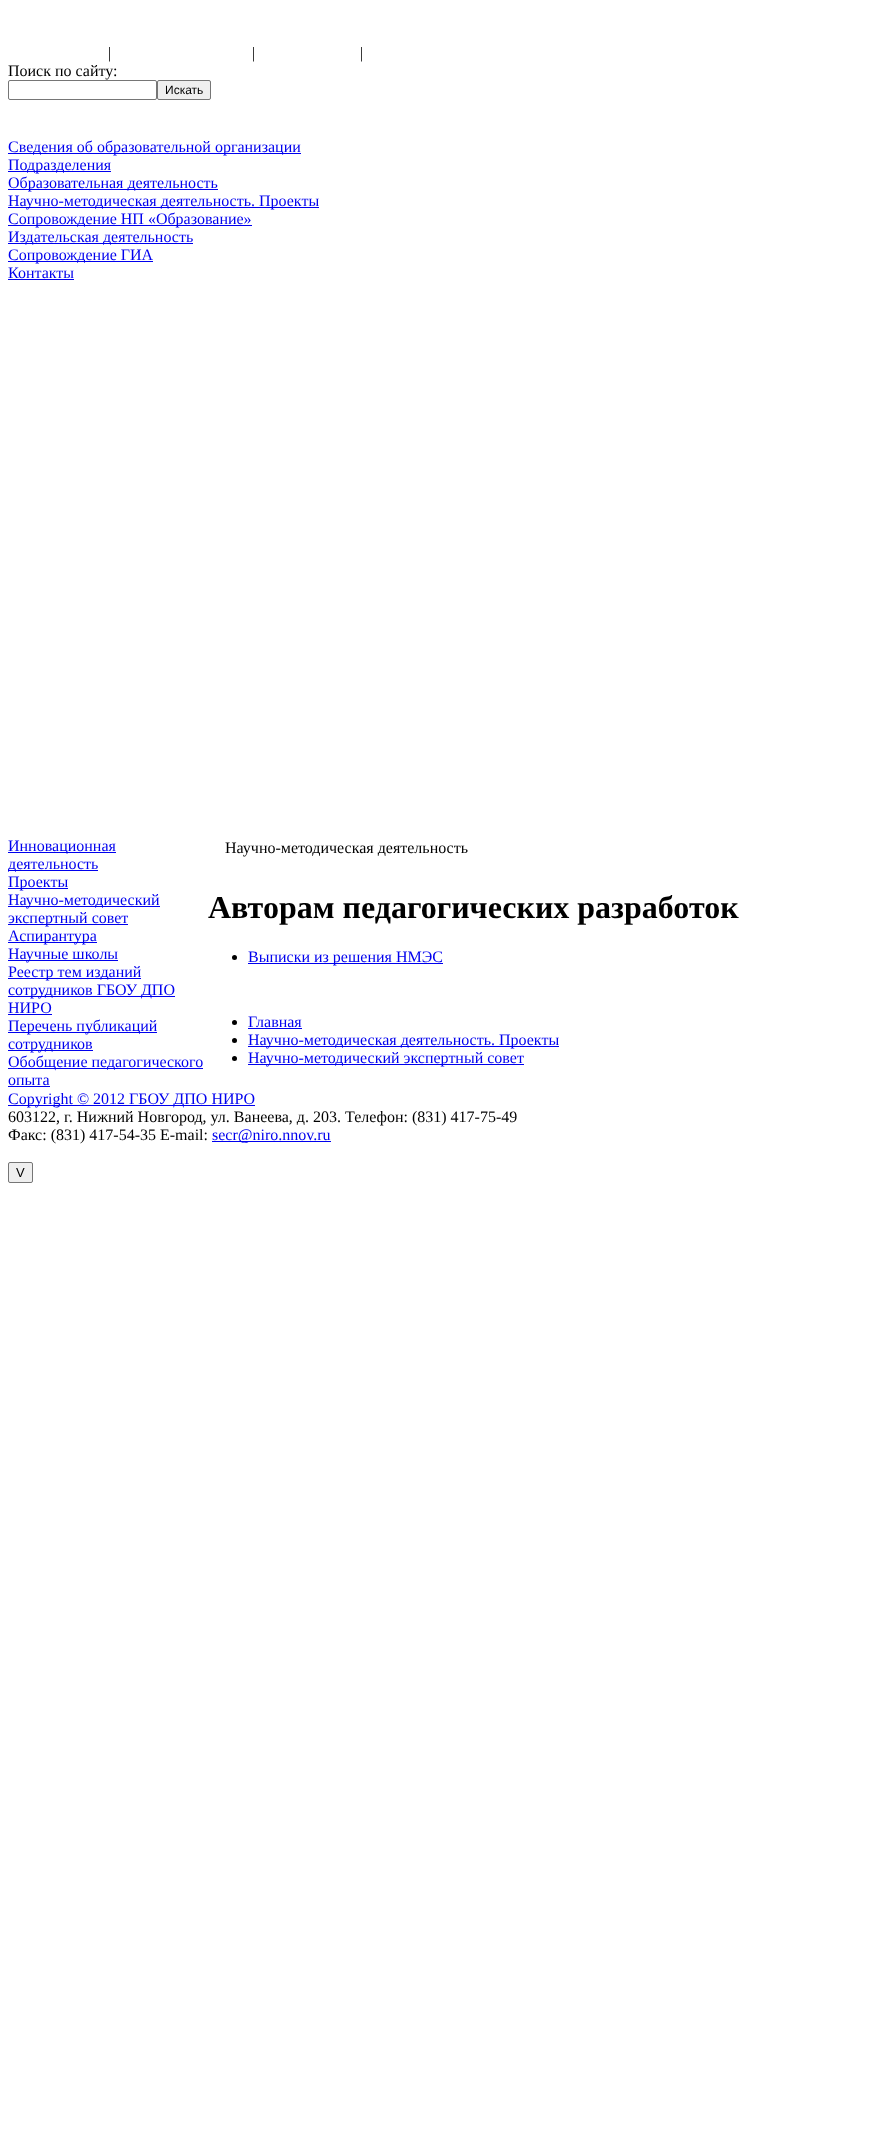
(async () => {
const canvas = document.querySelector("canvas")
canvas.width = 874
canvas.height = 2132
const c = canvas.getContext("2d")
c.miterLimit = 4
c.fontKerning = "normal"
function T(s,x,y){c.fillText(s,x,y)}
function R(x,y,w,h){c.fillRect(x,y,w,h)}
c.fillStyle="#fff"
R(0,0,874,2132)
c.font="16px Liberation Serif"
c.fillStyle="#000"
T("|",108,58)
T("|",252,58)
T("|",360,58)
T("Поиск по сайту:",8,76)
c.beginPath()
c.roundRect(8.5,80.5,148,19,1.5)
c.strokeStyle="#767676"
c.stroke()
c.fillStyle="#efefef"
c.beginPath()
c.roundRect(157.5,80.5,53,19,1.5)
c.fill()
c.stroke()
c.font="12px Liberation Sans"
c.fillStyle="#000"
T("Искать",165,94)
c.fillStyle="#00e"
R(8,153,293,1)
c.font="16px Liberation Serif"
T("Сведения об образовательной организации",8,152)
R(8,171,103,1)
T("Подразделения",8,170)
R(8,189,210,1)
T("Образовательная деятельность",8,188)
R(8,207,311,1)
T("Научно-методическая деятельность. Проекты",8,206)
R(8,225,244,1)
T("Сопровождение НП «Образование»",8,224)
R(8,243,185,1)
T("Издательская деятельность",8,242)
R(8,261,145,1)
T("Сопровождение ГИА",8,260)
T("Контакты",8,278)
R(8,279,66,1)
R(8,852,108,1)
T("Инновационная",8,851)
R(8,870,90,1)
T("деятельность",8,869)
R(8,888,60,1)
T("Проекты",8,887)
R(8,906,152,1)
T("Научно-методический",8,905)
R(8,924,120,1)
T("экспертный совет",8,923)
R(8,942,89,1)
T("Аспирантура",8,941)
R(8,960,110,1)
T("Научные школы",8,959)
R(8,978,133,1)
T("Реестр тем изданий",8,977)
R(8,996,167,1)
T("сотрудников ГБОУ ДПО",8,995)
T("НИРО",8,1013)
R(8,1014,44,1)
R(8,1032,149,1)
T("Перечень публикаций",8,1031)
R(8,1050,85,1)
T("сотрудников",8,1049)
R(8,1068,195,1)
T("Обобщение педагогического",8,1067)
T("опыта",8,1085)
R(8,1086,42,1)
c.fillStyle="#000"
T("Научно-методическая деятельность",225,853)
c.font="bold 32px Liberation Serif"
T("Авторам педагогических разработок",208,918)
c.beginPath()
c.arc(234.5,957.5,2.5,0,7)
c.fill()
c.fillStyle="#00e"
R(248,963,195,1)
c.font="16px Liberation Serif"
T("Выписки из решения НМЭС",248,962)
c.fillStyle="#000"
c.beginPath()
c.arc(234.5,1022.5,2.5,0,7)
c.fill()
c.fillStyle="#00e"
T("Главная",248,1027)
R(248,1028,54,1)
c.fillStyle="#000"
c.beginPath()
c.arc(234.5,1040.5,2.5,0,7)
c.fill()
c.fillStyle="#00e"
R(248,1046,311,1)
T("Научно-методическая деятельность. Проекты",248,1045)
c.fillStyle="#000"
c.beginPath()
c.arc(234.5,1058.5,2.5,0,7)
c.fill()
c.fillStyle="#00e"
R(248,1064,276,1)
T("Научно-методический экспертный совет",248,1063)
R(8,1105,247,1)
T("Copyright © 2012 ГБОУ ДПО НИРО",8,1104)
c.fillStyle="#000"
T("603122, г. Нижний Новгород, ул. Ванеева, д. 203. Телефон: (831) 417-75-49",8,1122)
T("Факс: (831) 417-54-35 E-mail:",8,1140)
c.fillStyle="#00e"
R(212,1141,119,1)
T("secr@niro.nnov.ru",212,1140)
c.fillStyle="#efefef"
c.beginPath()
c.roundRect(8.5,1162.5,24,20,1.5)
c.fill()
c.stroke()
c.font="13px Liberation Sans"
c.fillStyle="#000"
T("V",16,1177)
})()
